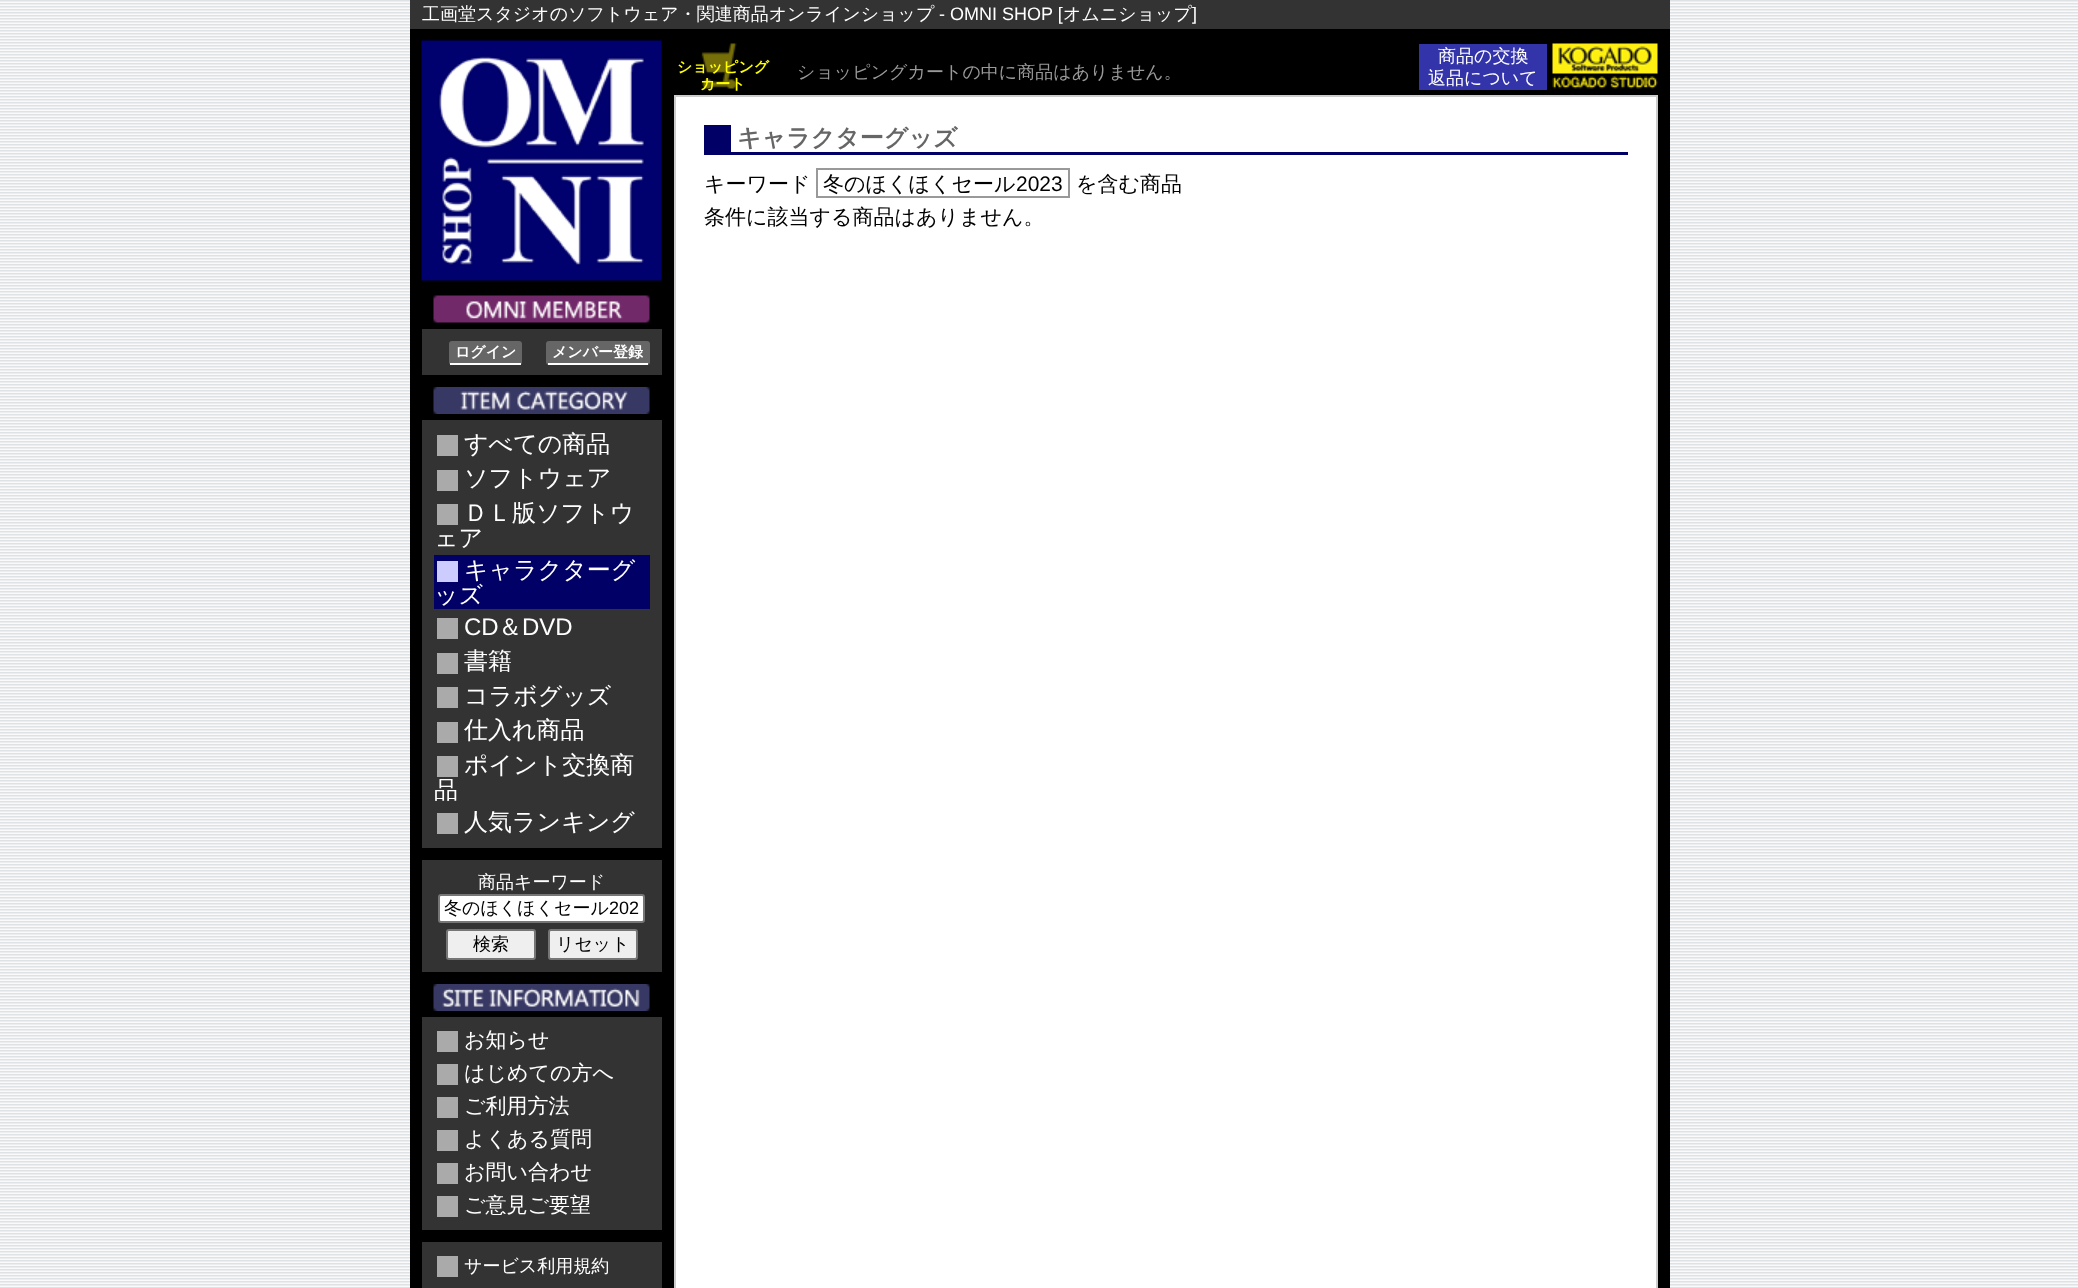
(async () => {
const canvas = document.querySelector("canvas")
canvas.width = 2078
canvas.height = 1288
const c = canvas.getContext("2d")
c.miterLimit = 4
c.fontKerning = "normal"
function T(s,x,y){c.fillText(s,x,y)}
function R(x,y,w,h){c.fillRect(x,y,w,h)}
function Q(x,y,w,h,r){c.beginPath();c.roundRect(x,y,w,h,r);c.fill()}
async function I(src,x,y,w,h){const img=new Image();img.src=src;await img.decode();c.drawImage(img,x,y,w,h)}
c.fillStyle="#fff"
R(0,0,2078,1288)
await I("1.png",0,0,2078,1288)
c.fillStyle="#000"
R(410,29,1260,1259)
c.fillStyle="#333"
R(410,0,1260,29)
c.font="500 18px WenQuanYi Zen Hei"
c.fillStyle="#fff"
T("工画堂スタジオのソフトウェア・関連商品オンラインショップ",422,20)
c.font="18px Liberation Sans"
T("- OMNI SHOP [",939,20)
c.font="500 18px WenQuanYi Zen Hei"
T("オムニショップ",1063,20)
c.font="18px Liberation Sans"
T("]",1192,20)
await I("2.png",421,40,241,241)
await I("3.png",701,43,36,46)
c.font="bold 15px WenQuanYi Zen Hei"
c.fillStyle="#ff0"
T("ショッピング",677,72)
T("カート",700,89)
c.font="500 18px WenQuanYi Zen Hei"
c.fillStyle="#999"
T("ショッピングカートの中に商品はありません。",797,78)
c.fillStyle="#33a"
R(1419,44,128,46)
c.fillStyle="#fff"
T("商品の交換",1438,62)
T("返品について",1428,84)
await I("4.png",1552,43,106,46)
c.beginPath()
c.rect(675,96,982,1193)
c.fill()
c.strokeStyle="#ccc"
c.lineWidth=2
c.stroke()
c.fillStyle="#006"
R(704,125,924,30)
c.fillStyle="#fff"
R(731,125,897,27)
c.font="bold 24px WenQuanYi Zen Hei"
c.fillStyle="#666"
T("キャラクターグッズ",737,146)
c.font="500 21px WenQuanYi Zen Hei"
c.fillStyle="#000"
T("キーワード",704,191)
c.strokeStyle="#999"
c.strokeRect(817,169,252,28)
T("冬のほくほくセール",823,191)
c.font="21px Liberation Sans"
T("2023",1016,191)
c.font="500 21px WenQuanYi Zen Hei"
T("を含む商品",1076,191)
T("条件に該当する商品はありません。",704,224)
await I("5.png",433,295,217,28)
c.fillStyle="#333"
R(422,329,240,46)
c.fillStyle="#666"
Q(449,341,73,24,3)
c.fillStyle="#fff"
R(450,363,71,2)
c.font="bold 15px WenQuanYi Zen Hei"
T("ログイン",455,357)
c.fillStyle="#666"
Q(546,341,104,24,3)
c.fillStyle="#fff"
R(548,363,100,2)
T("メンバー登録",552,357)
await I("6.png",433,387,217,27)
c.fillStyle="#333"
R(422,420,240,428)
c.fillStyle="#aaa"
R(437,435,21,21)
c.font="500 24px WenQuanYi Zen Hei"
c.fillStyle="#fff"
T("すべての商品",464,452)
c.fillStyle="#aaa"
R(437,470,21,21)
c.fillStyle="#fff"
T("ソフトウェア",464,486)
c.fillStyle="#aaa"
R(437,504,21,21)
c.fillStyle="#fff"
T("ＤＬ版ソフトウ",464,521)
T("ェア",434,546)
c.fillStyle="#006"
R(434,555,216,54)
c.fillStyle="#ccf"
R(437,561,21,21)
c.fillStyle="#fff"
T("キャラクターグ",464,578)
T("ッズ",434,603)
c.fillStyle="#aaa"
R(437,618,21,21)
c.font="24px Liberation Sans"
c.fillStyle="#fff"
T("CD",464,635)
c.font="500 24px WenQuanYi Zen Hei"
T("＆",498,635)
c.font="24px Liberation Sans"
T("DVD",522,635)
c.fillStyle="#aaa"
R(437,653,21,21)
c.font="500 24px WenQuanYi Zen Hei"
c.fillStyle="#fff"
T("書籍",464,669)
c.fillStyle="#aaa"
R(437,687,21,21)
c.fillStyle="#fff"
T("コラボグッズ",464,704)
c.fillStyle="#aaa"
R(437,722,21,21)
c.fillStyle="#fff"
T("仕入れ商品",464,738)
c.fillStyle="#aaa"
R(437,756,21,21)
c.fillStyle="#fff"
T("ポイント交換商",464,773)
T("品",434,798)
c.fillStyle="#aaa"
R(437,813,21,21)
c.fillStyle="#fff"
T("人気ランキング",464,830)
c.fillStyle="#333"
R(422,860,240,112)
c.font="500 18px WenQuanYi Zen Hei"
c.fillStyle="#fff"
T("商品キーワード",478,888)
c.beginPath()
c.roundRect(439,895,205,27,2)
c.fill()
c.strokeStyle="#767676"
c.stroke()
c.fillStyle="#000"
T("冬のほくほくセール",444,914)
c.font="18px Liberation Sans"
T("202",609,914)
c.fillStyle="#efefef"
c.beginPath()
c.roundRect(447,930,88,29,2)
c.fill()
c.stroke()
c.font="500 18px WenQuanYi Zen Hei"
c.fillStyle="#000"
T("検索",473,950)
c.fillStyle="#efefef"
c.beginPath()
c.roundRect(549,930,88,29,2)
c.fill()
c.stroke()
c.fillStyle="#000"
T("リセット",556,950)
await I("7.png",433,984,217,27)
c.fillStyle="#333"
R(422,1017,240,213)
c.fillStyle="#aaa"
R(437,1031,21,21)
c.font="500 21px WenQuanYi Zen Hei"
c.fillStyle="#fff"
T("お知らせ",464,1047)
c.fillStyle="#aaa"
R(437,1064,21,21)
c.fillStyle="#fff"
T("はじめての方へ",464,1080)
c.fillStyle="#aaa"
R(437,1097,21,21)
c.fillStyle="#fff"
T("ご利用方法",464,1113)
c.fillStyle="#aaa"
R(437,1130,21,21)
c.fillStyle="#fff"
T("よくある質問",464,1146)
c.fillStyle="#aaa"
R(437,1163,21,21)
c.fillStyle="#fff"
T("お問い合わせ",464,1179)
c.fillStyle="#aaa"
R(437,1196,21,21)
c.fillStyle="#fff"
T("ご意見ご要望",464,1212)
c.fillStyle="#333"
R(422,1242,240,46)
c.fillStyle="#aaa"
R(437,1256,21,21)
c.font="500 18px WenQuanYi Zen Hei"
c.fillStyle="#fff"
T("サービス利用規約",464,1272)
})()
